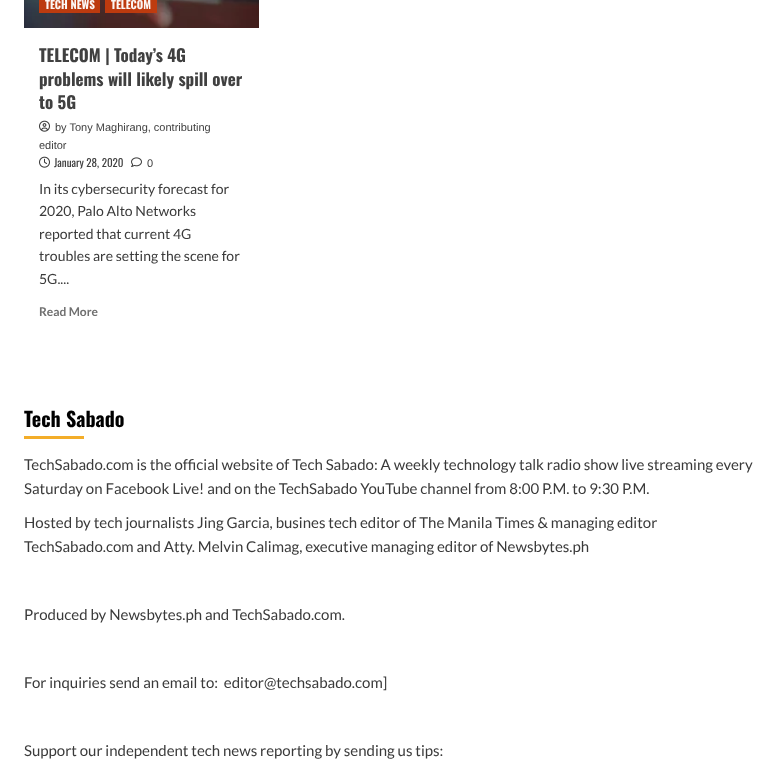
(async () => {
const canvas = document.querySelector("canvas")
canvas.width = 782
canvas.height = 770
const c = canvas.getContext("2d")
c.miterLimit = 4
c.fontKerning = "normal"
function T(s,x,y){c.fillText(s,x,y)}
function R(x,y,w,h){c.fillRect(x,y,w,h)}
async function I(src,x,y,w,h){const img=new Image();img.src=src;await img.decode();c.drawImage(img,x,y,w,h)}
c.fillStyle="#fff"
R(0,0,782,770)
await I("1.png",24,0,235,28)
c.fillStyle="#c23b0ef5"
R(39,0,61,13)
c.font="bold 11px Oswald"
c.fillStyle="#fcf7f5"
T("TECH NEWS",45,9)
c.fillStyle="#c23b0ef5"
R(105,0,52,13)
c.fillStyle="#fcf7f5"
T("TELECOM",111,9)
c.font="bold 17px Oswald"
c.fillStyle="#404040"
T("TELECOM | Today’s 4G",39,62)
T("problems will likely spill over",39,86)
T("to 5G",39,109)
await I("2.png",39,120,11,12)
c.font="11px Liberation Sans"
T("by Tony Maghirang, contributing",55,131)
T("editor",39,149)
await I("3.png",39,156,11,12)
c.font="11px Oswald"
T("January 28, 2020",54,167)
await I("4.png",131,157,11,10)
c.font="11px Liberation Sans"
T("0",147,167)
c.font="14px Lato"
c.fillStyle="#3a3a3a"
T("In its cybersecurity forecast for",39,194)
T("2020, Palo Alto Networks",39,216)
T("reported that current 4G",39,239)
T("troubles are setting the scene for",39,261)
T("5G....",39,284)
c.font="bold 12px Lato"
c.fillStyle="#707070"
T("Read More",39,316)
c.font="bold 20px Oswald"
c.fillStyle="#000"
T("Tech Sabado",24,427)
c.fillStyle="#f3ad29"
R(24,436,60,3)
c.font="15px Lato"
c.fillStyle="#3a3a3a"
T("TechSabado.com is the official website of Tech Sabado: A weekly technology talk radio show live streaming every",24,470)
T("Saturday on Facebook Live! and on the TechSabado YouTube channel from 8:00 P.M. to 9:30 P.M.",24,494)
T("Hosted by tech journalists Jing Garcia, busines tech editor of The Manila Times & managing editor",24,528)
T("TechSabado.com and Atty. Melvin Calimag, executive managing editor of Newsbytes.ph",24,552)
T("Produced by Newsbytes.ph and TechSabado.com.",24,620)
T("For inquiries send an email to:  editor@techsabado.com]",24,688)
T("Support our independent tech news reporting by sending us tips:",24,756)
})()
